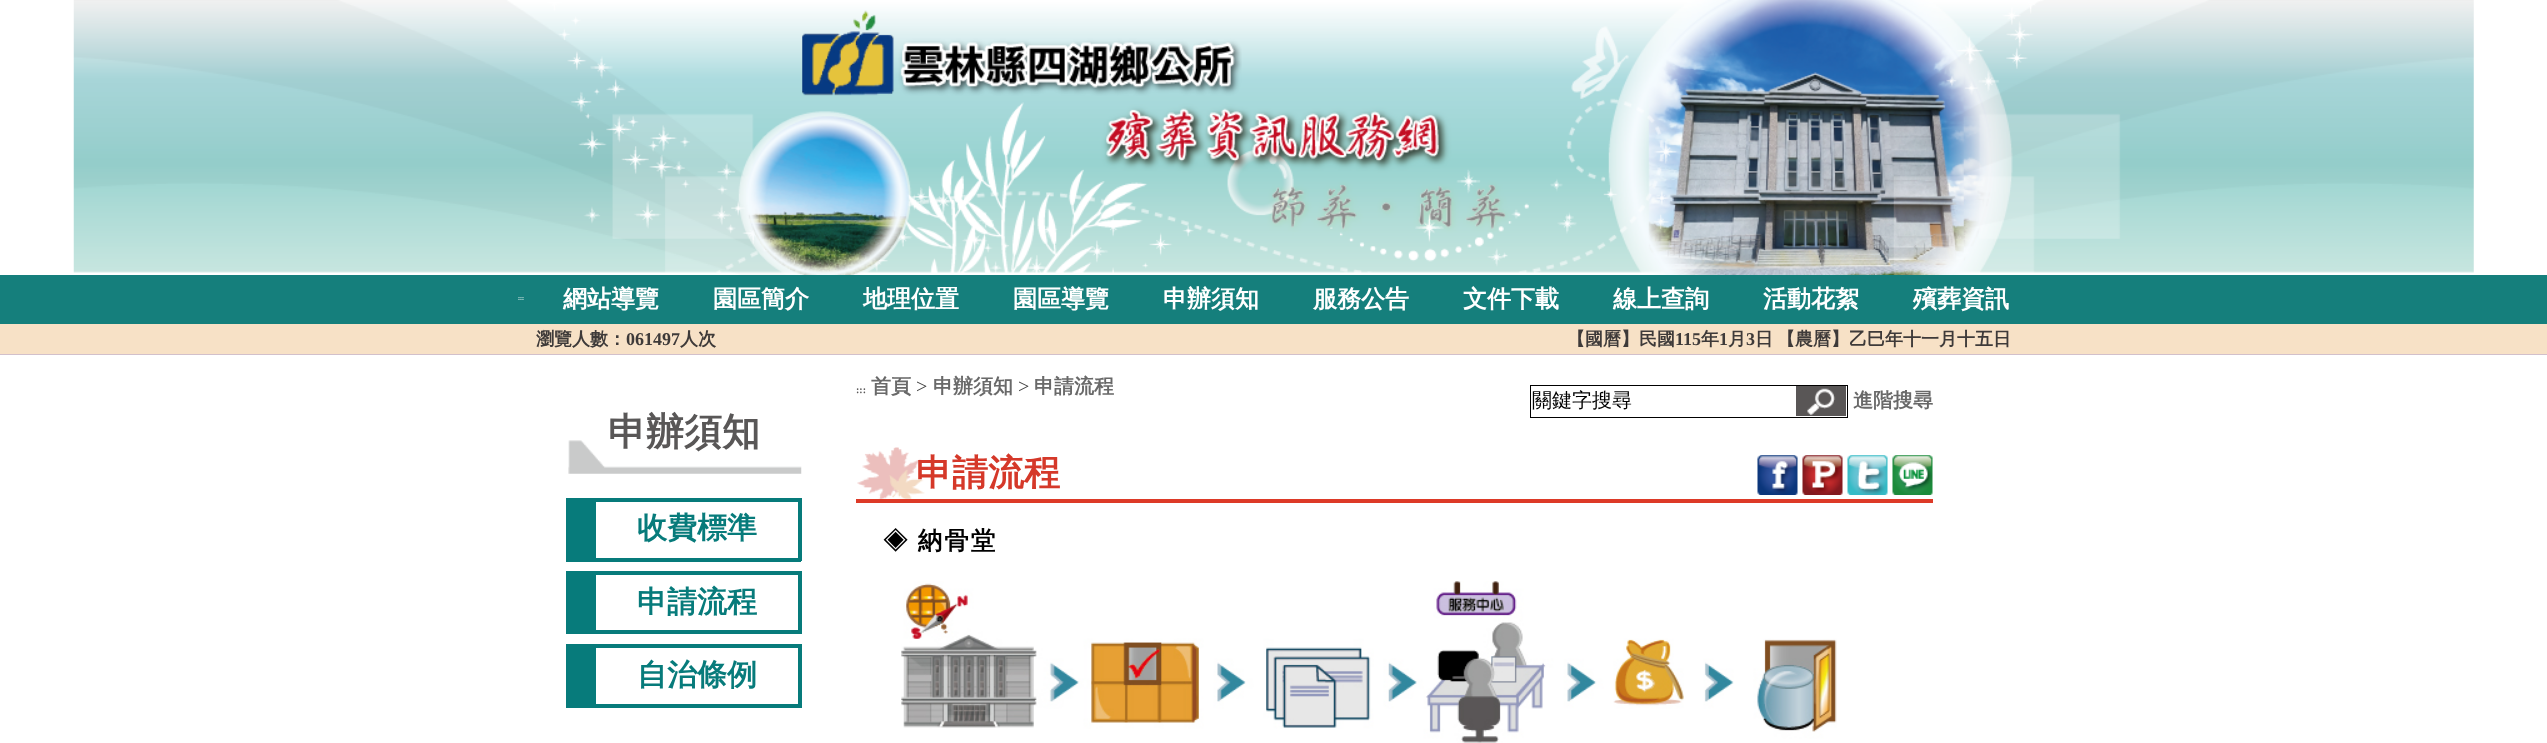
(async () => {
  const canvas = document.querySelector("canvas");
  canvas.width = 2547;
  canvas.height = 743;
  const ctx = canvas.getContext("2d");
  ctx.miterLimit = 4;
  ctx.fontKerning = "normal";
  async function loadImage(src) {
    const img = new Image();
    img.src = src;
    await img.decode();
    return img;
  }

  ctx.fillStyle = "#ffffff";
  ctx.fillRect(0, 0, 2547, 743);
  ctx.drawImage(await loadImage("img/1.png"), 73, 0, 2401, 275);
  ctx.drawImage(await loadImage("img/2.png"), 802, 10, 440, 86);
  for (const [x, y, w, h, color] of [
    [0, 275, 2547, 49, "#157f7c"],
    [0, 324, 2547, 30, "#f7e1c6"],
    [0, 354, 2547, 1, "#d2c0cb"],
  ]) {
    ctx.fillStyle = color;
    ctx.fillRect(x, y, w, h);
  }
  ctx.drawImage(await loadImage("img/3.png"), 568, 440, 234, 34);
  for (const [x, y, w, h, color] of [
    [596, 498, 205, 4, "#077b7b"],
    [798, 498, 4, 63, "#077b7b"],
    [566, 558, 235, 4, "#077b7b"],
    [566, 498, 30, 60, "#077b7b"],
    [596, 571, 205, 4, "#077b7b"],
    [798, 571, 4, 63, "#077b7b"],
    [596, 630, 205, 4, "#077b7b"],
    [566, 571, 30, 63, "#077b7b"],
    [596, 644, 205, 4, "#077b7b"],
    [798, 644, 4, 64, "#077b7b"],
    [596, 704, 205, 4, "#077b7b"],
    [566, 644, 30, 64, "#077b7b"],
  ]) {
    ctx.fillStyle = color;
    ctx.fillRect(x, y, w, h);
  }
  ctx.strokeStyle = "#000000";
  ctx.strokeRect(1530.5, 385.5, 317, 32);
  ctx.fillStyle = "#595656";
  ctx.fillRect(1796, 386, 50, 30);
  ctx.drawImage(await loadImage("img/4.png"), 1807, 388, 29, 28);
  ctx.drawImage(await loadImage("img/5.png"), 857, 447, 68, 52);
  ctx.drawImage(await loadImage("img/6.png"), 1757, 455, 41, 40);
  ctx.drawImage(await loadImage("img/7.png"), 1802, 455, 41, 40);
  ctx.drawImage(await loadImage("img/8.png"), 1847, 455, 41, 40);
  ctx.drawImage(await loadImage("img/9.png"), 1892, 455, 41, 40);
  ctx.fillStyle = "#dd3a28";
  ctx.fillRect(856, 499, 1077, 4);
  ctx.drawImage(await loadImage("img/10.png"), 901, 581, 936, 162);
  ctx.font = "bold 6px Liberation Serif";
  ctx.fillStyle = "#ffffff";
  ctx.fillText(":::", 518, 300);
  ctx.font = "bold 24px WenQuanYi Zen Hei";
  for (const [text, x, y] of [
    ["網站導覽", 563, 307],
    ["園區簡介", 713, 307],
    ["地理位置", 863, 307],
    ["園區導覽", 1013, 307],
    ["申辦須知", 1163, 307],
    ["服務公告", 1313, 307],
    ["文件下載", 1463, 307],
    ["線上查詢", 1613, 307],
    ["活動花絮", 1763, 307],
    ["殯葬資訊", 1913, 307],
  ]) {
    ctx.fillText(text, x, y);
  }
  ctx.font = "bold 18px WenQuanYi Zen Hei";
  ctx.fillStyle = "#3e3a39";
  ctx.fillText("瀏覽人數：", 536, 345);
  ctx.font = "bold 18px Liberation Serif";
  ctx.fillText("061497", 626, 345);
  ctx.font = "bold 18px WenQuanYi Zen Hei";
  ctx.fillText("人次", 680, 345);
  ctx.fillText("【國曆】民國", 1567, 345);
  ctx.font = "bold 18px Liberation Serif";
  ctx.fillText("115", 1675, 345);
  ctx.font = "bold 18px WenQuanYi Zen Hei";
  ctx.fillText("年", 1701, 345);
  ctx.font = "bold 18px Liberation Serif";
  ctx.fillText("1", 1719, 345);
  ctx.font = "bold 18px WenQuanYi Zen Hei";
  ctx.fillText("月", 1728, 345);
  ctx.font = "bold 18px Liberation Serif";
  ctx.fillText("3", 1746, 345);
  ctx.font = "bold 18px WenQuanYi Zen Hei";
  ctx.fillText("日", 1755, 345);
  ctx.fillText("【農曆】乙巳年十一月十五日", 1777, 345);
  ctx.font = "bold 38px WenQuanYi Zen Hei";
  ctx.fillStyle = "#595757";
  ctx.fillText("申辦須知", 608, 445);
  ctx.font = "bold 30px WenQuanYi Zen Hei";
  ctx.fillStyle = "#077b7b";
  for (const [text, x, y] of [
    ["收費標準", 637, 538],
    ["申請流程", 637, 612],
    ["自治條例", 637, 685],
  ]) {
    ctx.fillText(text, x, y);
  }
  ctx.font = "bold 10px Liberation Serif";
  ctx.fillStyle = "#595757";
  ctx.fillText(":::", 856, 393);
  ctx.font = "bold 20px WenQuanYi Zen Hei";
  ctx.fillStyle = "#696969";
  ctx.fillText("首頁", 871, 393);
  ctx.font = "20px Liberation Serif";
  ctx.fillStyle = "#404040";
  ctx.fillText(">", 916, 393);
  ctx.font = "bold 20px WenQuanYi Zen Hei";
  ctx.fillStyle = "#696969";
  ctx.fillText("申辦須知", 933, 393);
  ctx.font = "20px Liberation Serif";
  ctx.fillStyle = "#404040";
  ctx.fillText(">", 1018, 393);
  ctx.font = "bold 20px WenQuanYi Zen Hei";
  ctx.fillStyle = "#696969";
  ctx.fillText("申請流程", 1034, 393);
  ctx.font = "500 20px WenQuanYi Zen Hei";
  ctx.fillStyle = "#000000";
  ctx.fillText("關鍵字搜尋", 1532, 407);
  ctx.font = "bold 20px WenQuanYi Zen Hei";
  ctx.fillStyle = "#696969";
  ctx.fillText("進階搜尋", 1853, 407);
  ctx.font = "bold 36px WenQuanYi Zen Hei";
  ctx.fillStyle = "#d53829";
  ctx.fillText("申請流程", 916, 485);
  ctx.letterSpacing = "2px";
  ctx.wordSpacing = "-1px";
  ctx.font = "bold 24.5px WenQuanYi Zen Hei";
  ctx.fillStyle = "#000000";
  ctx.fillText("◈ 納骨堂", 883, 549);
})();
